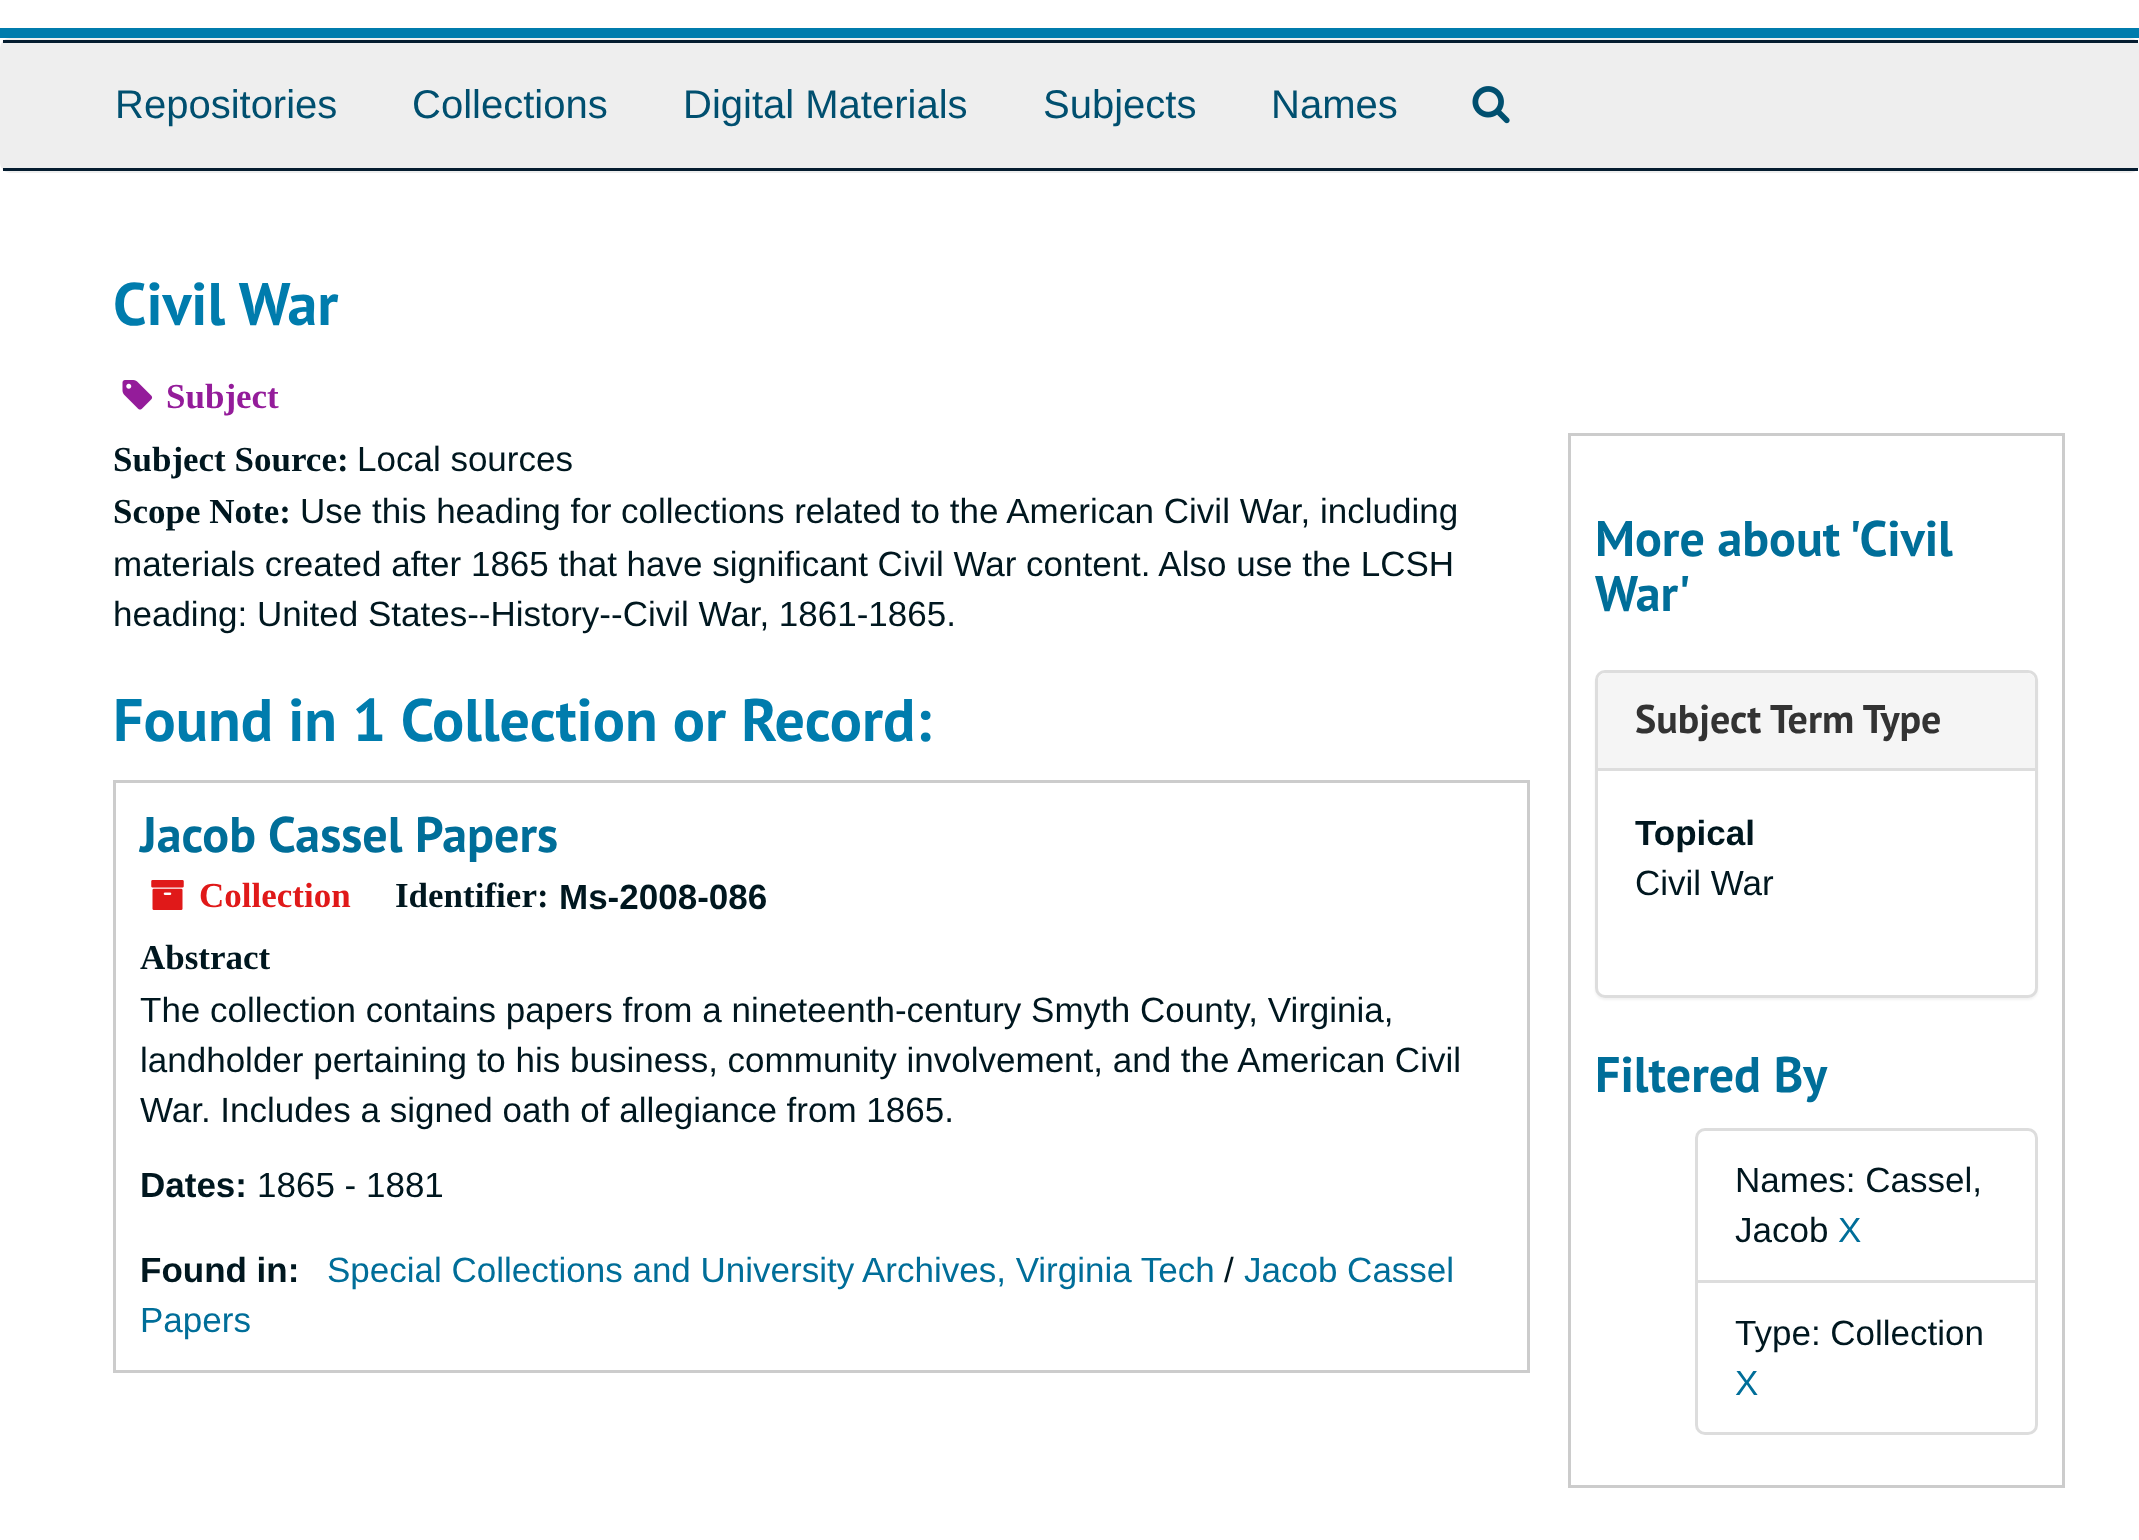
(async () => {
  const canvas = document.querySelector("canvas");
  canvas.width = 2139;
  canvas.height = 1540;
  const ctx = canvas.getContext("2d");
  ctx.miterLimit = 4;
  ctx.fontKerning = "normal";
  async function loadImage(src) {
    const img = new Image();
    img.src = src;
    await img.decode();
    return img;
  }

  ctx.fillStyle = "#ffffff";
  ctx.fillRect(0, 0, 2139, 1540);
  ctx.fillStyle = "#007cad";
  ctx.fillRect(0, 28, 2139, 10);
  ctx.beginPath();
  ctx.roundRect(1.5, 39.5, 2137, 132, 8.5);
  ctx.strokeStyle = "#eeeeee";
  ctx.lineWidth = 3;
  ctx.stroke();
  for (const [x, y, w, h, color] of [
    [3, 43, 2134, 125, "#eeeeee"],
    [3, 40, 2135, 3, "#041c2f"],
    [3, 168, 2135, 3, "#041c2f"],
  ]) {
    ctx.fillStyle = color;
    ctx.fillRect(x, y, w, h);
  }
  ctx.drawImage(await loadImage("img/1.png"), 1472, 86, 38, 38);
  ctx.drawImage(await loadImage("img/2.png"), 122, 380, 31, 30);
  ctx.strokeStyle = "#cccccc";
  ctx.strokeRect(114.5, 781.5, 1414, 590);
  ctx.drawImage(await loadImage("img/3.png"), 151, 880, 33, 30);
  ctx.strokeRect(1569.5, 434.5, 494, 1052);
  ctx.fillStyle = "rgba(0, 0, 0, 0.05)";
  ctx.filter = "blur(1px)";
  ctx.beginPath();
  ctx.roundRect(1595, 673, 443, 327, 10);
  ctx.fill();
  ctx.filter = "none";
  ctx.fillStyle = "#ffffff";
  ctx.beginPath();
  ctx.roundRect(1596.5, 671.5, 440, 325, 8.5);
  ctx.fill();
  ctx.strokeStyle = "#dddddd";
  ctx.stroke();
  ctx.fillStyle = "#f5f5f5";
  ctx.beginPath();
  ctx.roundRect(1598, 673, 437, 95, [8, 8, 0, 0]);
  ctx.fill();
  ctx.fillStyle = "#dddddd";
  ctx.fillRect(1598, 768, 437, 3);
  ctx.beginPath();
  ctx.roundRect(1696.5, 1129.5, 340, 152, [8.5, 8.5, 0, 0]);
  ctx.stroke();
  ctx.fillStyle = "#ffffff";
  ctx.beginPath();
  ctx.roundRect(1696.5, 1281.5, 340, 152, [0, 0, 8.5, 8.5]);
  ctx.fill();
  ctx.stroke();
  ctx.font = "40px Liberation Sans";
  ctx.fillStyle = "#004f6f";
  for (const [text, x, y] of [
    ["Repositories", 115, 118],
    ["Collections", 412, 118],
    ["Digital Materials", 683, 118],
    ["Subjects", 1043, 118],
    ["Names", 1271, 118],
  ]) {
    ctx.fillText(text, x, y);
  }
  ctx.font = "bold 60px PT Sans";
  ctx.fillStyle = "#007cad";
  ctx.fillText("Civil War", 113, 325);
  ctx.font = "bold 35px Liberation Serif";
  ctx.fillStyle = "#941c9a";
  ctx.fillText("Subject", 166, 408);
  ctx.fillStyle = "#00171f";
  ctx.fillText("Subject Source:", 113, 471);
  ctx.font = "35px Liberation Sans";
  ctx.fillText("Local sources", 357, 471);
  ctx.font = "bold 35px Liberation Serif";
  ctx.fillText("Scope Note:", 113, 523);
  ctx.font = "35px Liberation Sans";
  for (const [text, x, y] of [
    ["Use this heading for collections related to the American Civil War, including", 300, 523],
    ["materials created after 1865 that have significant Civil War content. Also use the LCSH", 113, 576],
    ["heading: United States--History--Civil War, 1861-1865.", 113, 626],
  ]) {
    ctx.fillText(text, x, y);
  }
  ctx.font = "bold 60px PT Sans";
  ctx.fillStyle = "#007cad";
  ctx.fillText("Found in 1 Collection or Record:", 113, 741);
  ctx.font = "bold 50px PT Sans";
  ctx.fillStyle = "#006e99";
  ctx.fillText("Jacob Cassel Papers", 140, 852);
  ctx.font = "bold 35px Liberation Serif";
  ctx.fillStyle = "#e01919";
  ctx.fillText("Collection", 199, 907);
  ctx.fillStyle = "#00171f";
  ctx.fillText("Identifier:", 395, 907);
  ctx.font = "bold 35px Liberation Sans";
  ctx.fillText("Ms-2008-086", 559, 909);
  ctx.font = "bold 35px Liberation Serif";
  ctx.fillText("Abstract", 140, 969);
  ctx.font = "35px Liberation Sans";
  for (const [text, x, y] of [
    ["The collection contains papers from a nineteenth-century Smyth County, Virginia,", 140, 1022],
    ["landholder pertaining to his business, community involvement, and the American Civil", 140, 1072],
    ["War. Includes a signed oath of allegiance from 1865.", 140, 1122],
  ]) {
    ctx.fillText(text, x, y);
  }
  ctx.font = "bold 35px Liberation Sans";
  ctx.fillText("Dates:", 140, 1197);
  ctx.font = "35px Liberation Sans";
  ctx.fillText("1865 - 1881", 257, 1197);
  ctx.font = "bold 35px Liberation Sans";
  ctx.fillText("Found in:", 140, 1282);
  ctx.font = "35px Liberation Sans";
  ctx.fillStyle = "#006e99";
  ctx.fillText("Special Collections and University Archives, Virginia Tech", 327, 1282);
  ctx.fillStyle = "#00171f";
  ctx.fillText("/", 1224, 1282);
  ctx.fillStyle = "#006e99";
  ctx.fillText("Jacob Cassel", 1244, 1282);
  ctx.fillText("Papers", 140, 1332);
  ctx.font = "bold 50px PT Sans";
  ctx.fillText("More about 'Civil", 1595, 556);
  ctx.fillText("War'", 1595, 611);
  ctx.font = "bold 40px PT Sans";
  ctx.fillStyle = "#333333";
  ctx.fillText("Subject Term Type", 1635, 733);
  ctx.font = "bold 35px Liberation Sans";
  ctx.fillStyle = "#00171f";
  ctx.fillText("Topical", 1635, 845);
  ctx.font = "35px Liberation Sans";
  ctx.fillText("Civil War", 1635, 895);
  ctx.font = "bold 50px PT Sans";
  ctx.fillStyle = "#006e99";
  ctx.fillText("Filtered By", 1595, 1092);
  ctx.font = "35px Liberation Sans";
  ctx.fillStyle = "#00171f";
  ctx.fillText("Names: Cassel,", 1735, 1192);
  ctx.fillText("Jacob", 1735, 1242);
  ctx.fillStyle = "#006e99";
  ctx.fillText("X", 1838, 1242);
  ctx.fillStyle = "#00171f";
  ctx.fillText("Type: Collection", 1735, 1345);
  ctx.fillStyle = "#006e99";
  ctx.fillText("X", 1735, 1395);
})();
